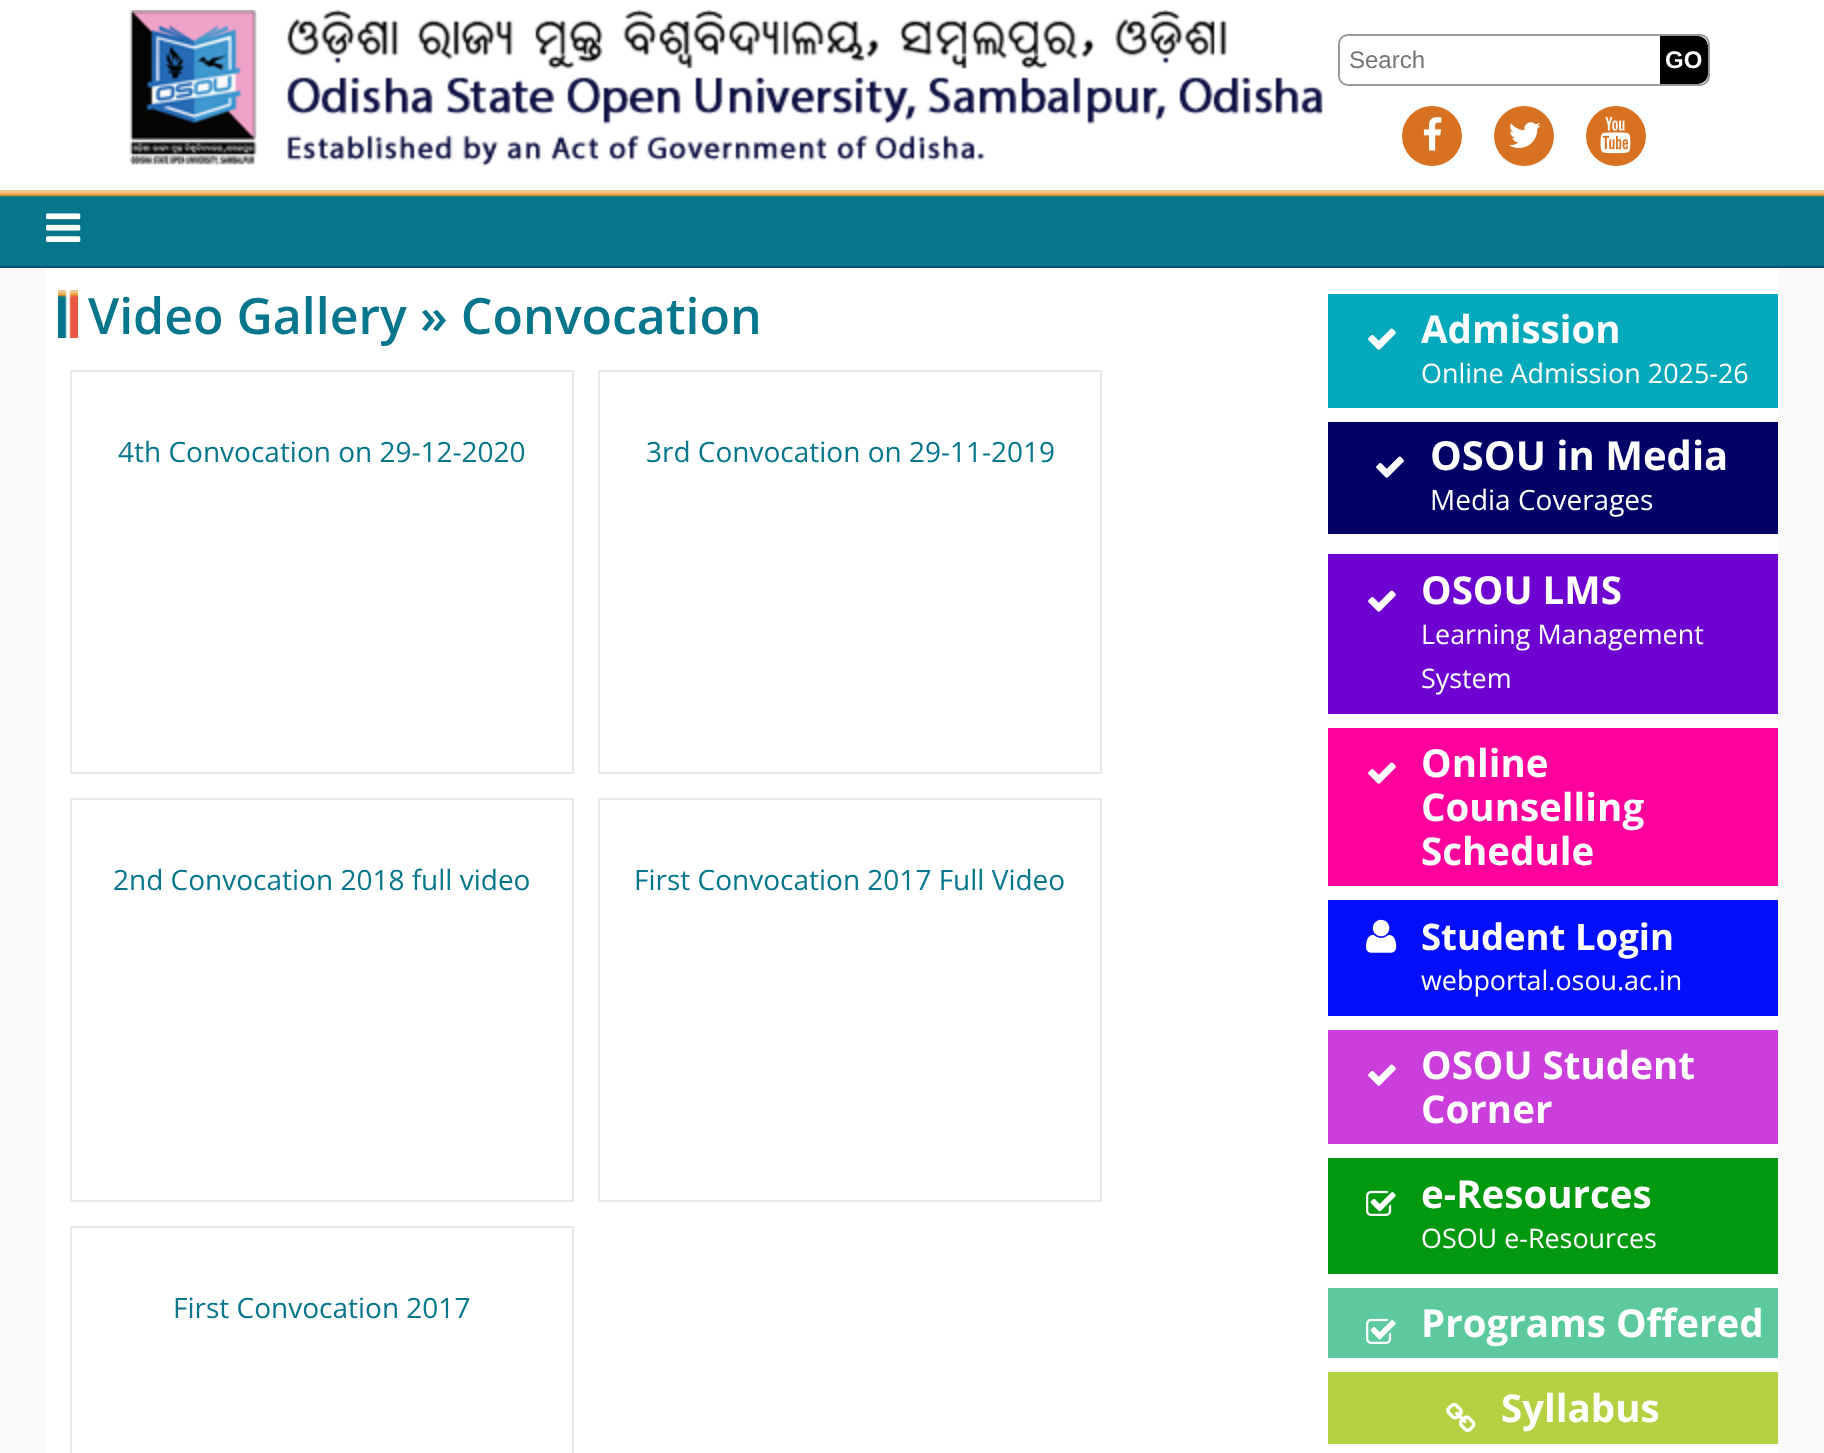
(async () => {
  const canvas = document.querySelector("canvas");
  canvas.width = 1824;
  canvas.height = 1453;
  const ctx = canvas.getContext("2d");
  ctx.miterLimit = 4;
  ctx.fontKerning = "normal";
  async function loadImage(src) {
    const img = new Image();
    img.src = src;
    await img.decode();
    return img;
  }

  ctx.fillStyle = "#f9f9f9";
  ctx.fillRect(0, 0, 1824, 1453);
  ctx.fillStyle = "#ffffff";
  ctx.fillRect(0, 0, 1824, 190);
  ctx.drawImage(await loadImage("img/1.png"), 129, 10, 1194, 156);
  ctx.beginPath();
  ctx.roundRect(1339, 35, 370, 50, 9);
  ctx.strokeStyle = "#999999";
  ctx.lineWidth = 2;
  ctx.stroke();
  ctx.beginPath();
  ctx.roundRect(1340, 36, 320, 48, 10);
  ctx.fill();
  ctx.fillStyle = "#000000";
  ctx.beginPath();
  ctx.roundRect(1660, 36, 48, 48, [0, 10, 10, 0]);
  ctx.fill();
  ctx.fillStyle = "#d77222";
  ctx.beginPath();
  ctx.arc(1432, 136, 30, 0, Math.PI * 2);
  ctx.fill();
  ctx.drawImage(await loadImage("img/2.png"), 1423, 117, 19, 34);
  ctx.beginPath();
  ctx.arc(1524, 136, 30, 0, Math.PI * 2);
  ctx.fill();
  ctx.drawImage(await loadImage("img/3.png"), 1509, 122, 32, 26);
  ctx.beginPath();
  ctx.arc(1616, 136, 30, 0, Math.PI * 2);
  ctx.fill();
  ctx.drawImage(await loadImage("img/4.png"), 1600, 117, 31, 37);
  ctx.drawImage(await loadImage("img/5.png"), 0, 190, 1824, 78);
  ctx.drawImage(await loadImage("img/6.png"), 46, 213, 35, 29);
  ctx.fillStyle = "#ffffff";
  ctx.fillRect(46, 268, 1732, 1185);
  ctx.drawImage(await loadImage("img/7.png"), 58, 290, 20, 48);
  ctx.strokeStyle = "#e9e9e9";
  ctx.strokeRect(71, 371, 502, 402);
  ctx.strokeRect(599, 371, 502, 402);
  ctx.strokeRect(71, 799, 502, 402);
  ctx.strokeRect(599, 799, 502, 402);
  ctx.strokeRect(71, 1227, 502, 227);
  ctx.fillStyle = "#04a9bc";
  ctx.fillRect(1328, 294, 450, 114);
  ctx.drawImage(await loadImage("img/8.png"), 1368, 328, 28, 22);
  ctx.fillStyle = "#000066";
  ctx.fillRect(1328, 422, 450, 112);
  ctx.drawImage(await loadImage("img/9.png"), 1376, 456, 28, 22);
  ctx.fillStyle = "#6d02d1";
  ctx.fillRect(1328, 554, 450, 160);
  ctx.drawImage(await loadImage("img/10.png"), 1368, 590, 28, 22);
  ctx.fillStyle = "#ff009c";
  ctx.fillRect(1328, 728, 450, 158);
  ctx.drawImage(await loadImage("img/11.png"), 1368, 762, 28, 22);
  ctx.fillStyle = "#030ffb";
  ctx.fillRect(1328, 900, 450, 116);
  ctx.drawImage(await loadImage("img/12.png"), 1366, 919, 31, 34);
  ctx.fillStyle = "#ca3edb";
  ctx.fillRect(1328, 1030, 450, 114);
  ctx.drawImage(await loadImage("img/13.png"), 1368, 1064, 28, 22);
  ctx.fillStyle = "#029810";
  ctx.fillRect(1328, 1158, 450, 116);
  ctx.drawImage(await loadImage("img/14.png"), 1366, 1190, 30, 26);
  ctx.fillStyle = "#5cca9d";
  ctx.fillRect(1328, 1288, 450, 70);
  ctx.drawImage(await loadImage("img/15.png"), 1366, 1318, 30, 26);
  ctx.fillStyle = "#b4d142";
  ctx.fillRect(1328, 1372, 450, 72);
  ctx.drawImage(await loadImage("img/16.png"), 1446, 1402, 30, 30);
  ctx.font = "24px Liberation Sans";
  ctx.fillStyle = "#757575";
  ctx.fillText("Search", 1349, 68);
  ctx.font = "bold 24px Liberation Sans";
  ctx.fillStyle = "#ffffff";
  ctx.fillText("GO", 1665, 68);
  ctx.font = "600 50px Open Sans";
  ctx.fillStyle = "#05768c";
  ctx.fillText("Video Gallery", 88, 334);
  ctx.fillText("» Convocation", 420, 334);
  ctx.font = "28px Open Sans";
  for (const [text, x, y] of [
    ["4th Convocation on 29-12-2020", 118, 462],
    ["3rd Convocation on 29-11-2019", 646, 462],
    ["2nd Convocation 2018 full video", 113, 890],
    ["First Convocation 2017 Full Video", 634, 890],
    ["First Convocation 2017", 173, 1318],
  ]) {
    ctx.fillText(text, x, y);
  }
  ctx.font = "bold 38.5px Open Sans";
  ctx.fillStyle = "#ffffff";
  ctx.fillText("Admission", 1421, 343);
  ctx.font = "26.9px Open Sans";
  ctx.fillText("Online Admission 2025-26", 1421, 383);
  ctx.font = "bold 40px Open Sans";
  ctx.fillText("OSOU in Media", 1430, 470);
  ctx.font = "28px Open Sans";
  ctx.fillText("Media Coverages", 1430, 510);
  ctx.font = "bold 38.5px Open Sans";
  ctx.fillText("OSOU LMS", 1421, 604);
  ctx.font = "26.9px Open Sans";
  ctx.fillText("Learning Management", 1421, 644);
  ctx.fillText("System", 1421, 688);
  ctx.font = "bold 38.5px Open Sans";
  for (const [text, x, y] of [
    ["Online", 1421, 777],
    ["Counselling", 1421, 821],
    ["Schedule", 1421, 865],
  ]) {
    ctx.fillText(text, x, y);
  }
  ctx.font = "bold 36.5px Open Sans";
  ctx.fillText("Student Login", 1421, 950);
  ctx.font = "26.9px Open Sans";
  ctx.fillText("webportal.osou.ac.in", 1421, 990);
  ctx.font = "bold 38.5px Open Sans";
  for (const [text, x, y] of [
    ["OSOU Student", 1421, 1079],
    ["Corner", 1421, 1123],
    ["e-Resources", 1421, 1208],
  ]) {
    ctx.fillText(text, x, y);
  }
  ctx.font = "26.9px Open Sans";
  ctx.fillText("OSOU e-Resources", 1421, 1248);
  ctx.font = "bold 38.5px Open Sans";
  ctx.fillText("Programs Offered", 1421, 1337);
  ctx.fillText("Syllabus", 1501, 1422);
})();
